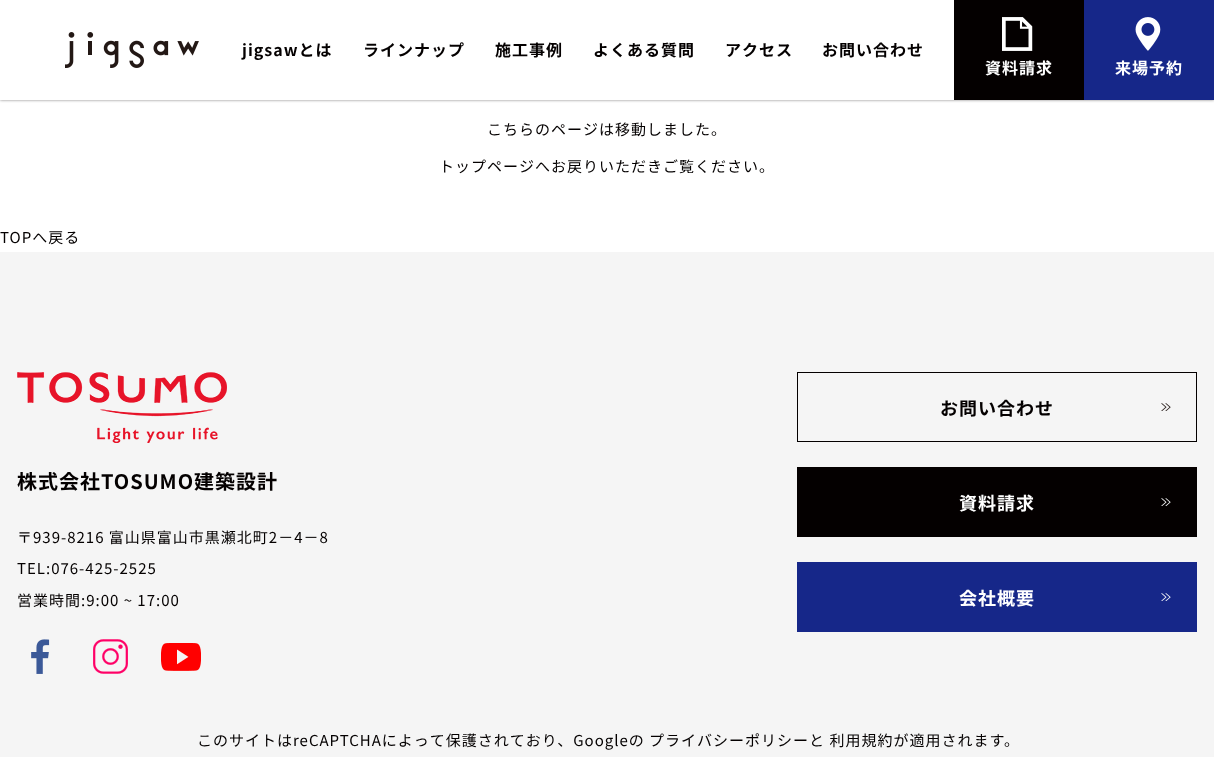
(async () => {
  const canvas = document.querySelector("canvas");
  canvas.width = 1214;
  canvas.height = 757;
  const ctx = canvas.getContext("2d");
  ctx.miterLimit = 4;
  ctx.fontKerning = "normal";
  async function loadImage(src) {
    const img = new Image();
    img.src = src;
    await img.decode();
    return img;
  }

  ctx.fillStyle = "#ffffff";
  ctx.fillRect(0, 0, 1214, 757);
  ctx.fillStyle = "rgba(4, 0, 0, 0.5)";
  ctx.filter = "blur(1.5px)";
  ctx.beginPath();
  ctx.rect(0, 0, 1214, 100);
  ctx.fill();
  ctx.filter = "none";
  ctx.fillStyle = "#ffffff";
  ctx.fillRect(0, 0, 954, 100);
  ctx.drawImage(await loadImage("img/1.png"), 65, 32, 134, 36);
  ctx.fillStyle = "#040000";
  ctx.fillRect(954, 0, 130, 100);
  ctx.drawImage(await loadImage("img/2.png"), 1002, 17, 31, 34);
  ctx.fillStyle = "#162789";
  ctx.fillRect(1084, 0, 130, 100);
  ctx.drawImage(await loadImage("img/3.png"), 1135, 17, 26, 34);
  ctx.fillStyle = "#f5f5f5";
  ctx.fillRect(0, 252, 1214, 505);
  ctx.drawImage(await loadImage("img/4.png"), 17, 372, 210, 71);
  ctx.drawImage(await loadImage("img/5.png"), 31, 639, 19, 35);
  ctx.drawImage(await loadImage("img/6.png"), 93, 639, 35, 35);
  ctx.drawImage(await loadImage("img/7.png"), 161, 643, 40, 28);
  ctx.strokeStyle = "#040000";
  ctx.strokeRect(797.5, 372.5, 399, 69);
  ctx.drawImage(await loadImage("img/8.png"), 1161, 403, 10, 8);
  ctx.fillStyle = "#040000";
  ctx.fillRect(797, 467, 400, 70);
  ctx.drawImage(await loadImage("img/9.png"), 1161, 498, 10, 8);
  ctx.fillStyle = "#162789";
  ctx.fillRect(797, 562, 400, 70);
  ctx.drawImage(await loadImage("img/10.png"), 1161, 593, 10, 8);
  ctx.letterSpacing = "1px";
  ctx.font = "bold 16px Noto Sans JP";
  ctx.fillStyle = "#040000";
  for (const [text, x, y] of [
    ["jigsawとは", 242, 56],
    ["ラインナップ", 363, 56],
    ["施工事例", 495, 56],
    ["よくある質問", 593, 56],
    ["アクセス", 725, 56],
    ["お問い合わせ", 822, 56],
  ]) {
    ctx.fillText(text, x, y);
  }
  ctx.fillStyle = "#ffffff";
  ctx.fillText("資料請求", 985, 74);
  ctx.fillText("来場予約", 1115, 74);
  ctx.font = "15px Noto Sans JP";
  ctx.fillStyle = "#040000";
  for (const [text, x, y] of [
    ["こちらのページは移動しました。", 487, 135],
    ["トップページへお戻りいただきご覧ください。", 439, 172],
    ["TOPへ戻る", 0, 243],
  ]) {
    ctx.fillText(text, x, y);
  }
  ctx.font = "bold 20px Noto Sans JP";
  ctx.fillText("株式会社TOSUMO建築設計", 17, 489);
  ctx.font = "15px Noto Sans JP";
  for (const [text, x, y] of [
    ["〒939-8216 富山県富山市黒瀬北町2－4－8", 17, 543],
    ["TEL:076-425-2525", 17, 574],
    ["営業時間:9:00 ~ 17:00", 17, 606],
  ]) {
    ctx.fillText(text, x, y);
  }
  ctx.font = "bold 18px Noto Sans JP";
  ctx.fillText("お問い合わせ", 940, 415);
  ctx.fillStyle = "#ffffff";
  ctx.fillText("資料請求", 959, 510);
  ctx.fillText("会社概要", 959, 605);
  ctx.font = "15px Noto Sans JP";
  ctx.fillStyle = "#040000";
  ctx.fillText("このサイトはreCAPTCHAによって保護されており、Googleの プライバシーポリシーと 利用規約が適用されます。", 197, 746);
})();
